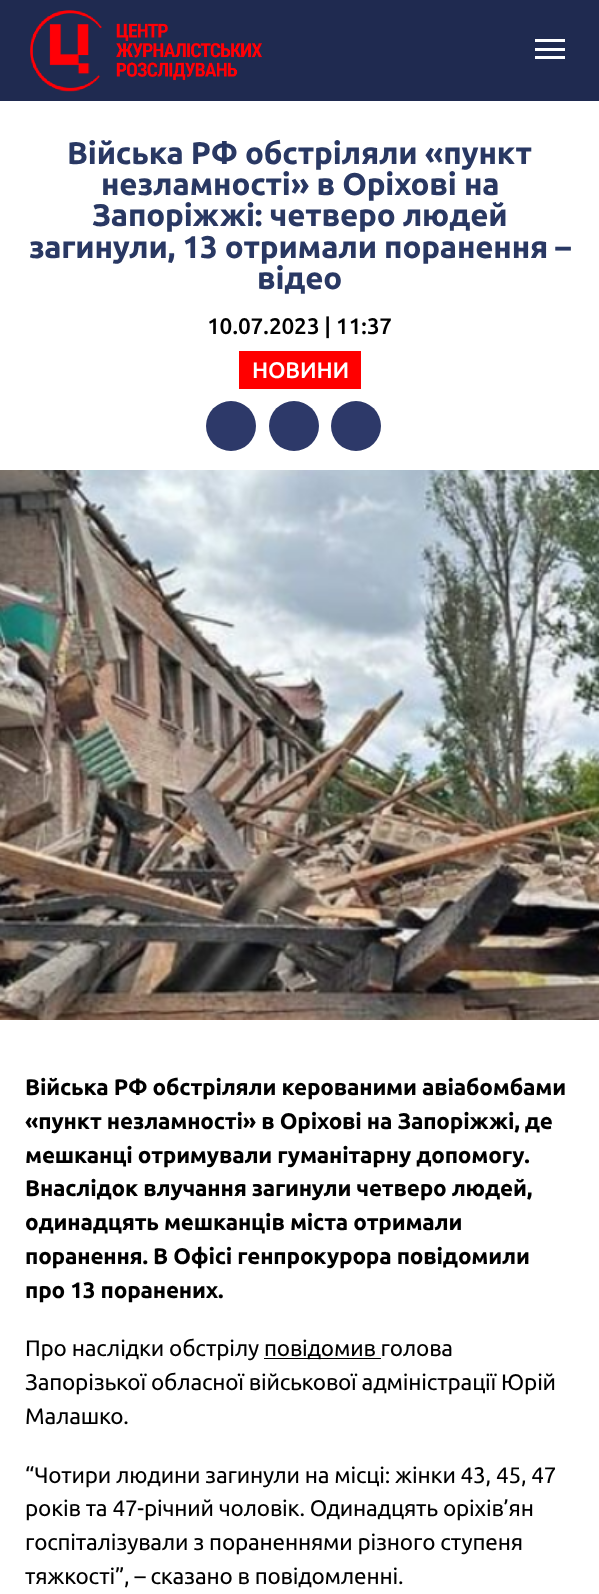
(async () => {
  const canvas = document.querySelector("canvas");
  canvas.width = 599;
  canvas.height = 1594;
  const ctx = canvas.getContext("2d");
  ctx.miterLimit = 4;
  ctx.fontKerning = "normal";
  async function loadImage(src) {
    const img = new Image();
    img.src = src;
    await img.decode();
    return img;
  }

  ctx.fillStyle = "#ffffff";
  ctx.fillRect(0, 0, 599, 1594);
  ctx.fillStyle = "#1f2a50";
  ctx.fillRect(0, 0, 599, 101);
  ctx.drawImage(await loadImage("img/1.png"), 30, 10, 232, 82);
  for (const [x, y, w, h, color] of [
    [535, 39, 30, 3, "#ffffff"],
    [535, 48, 30, 3, "#ffffff"],
    [535, 56, 30, 3, "#ffffff"],
    [239, 351, 122, 38, "#ff0000"],
  ]) {
    ctx.fillStyle = color;
    ctx.fillRect(x, y, w, h);
  }
  ctx.fillStyle = "#2d3969";
  ctx.beginPath();
  ctx.arc(231, 426, 25, 0, Math.PI * 2);
  ctx.fill();
  ctx.beginPath();
  ctx.arc(294, 426, 25, 0, Math.PI * 2);
  ctx.fill();
  ctx.beginPath();
  ctx.arc(356, 426, 25, 0, Math.PI * 2);
  ctx.fill();
  ctx.drawImage(await loadImage("img/2.png"), 0, 470, 599, 550);
  ctx.fillStyle = "#000000";
  ctx.fillRect(264, 1358, 117, 1);
  ctx.letterSpacing = "-0.2px";
  ctx.font = "bold 31.25px Ubuntu";
  ctx.fillStyle = "#293863";
  for (const [text, x, y] of [
    ["Війська РФ обстріляли «пункт", 67, 164],
    ["незламності» в Оріхові на", 101, 195],
    ["Запоріжжі: четверо людей", 92, 226],
    ["загинули, 13 отримали поранення –", 29, 258],
    ["відео", 257, 289],
  ]) {
    ctx.fillText(text, x, y);
  }
  ctx.font = "500 22.5px Ubuntu";
  ctx.fillStyle = "#000000";
  ctx.fillText("10.07.2023 | 11:37", 207, 334);
  ctx.fillStyle = "#ffffff";
  ctx.fillText("НОВИНИ", 252, 378);
  ctx.font = "bold 22.5px Ubuntu";
  ctx.fillStyle = "#000000";
  for (const [text, x, y] of [
    ["Війська РФ обстріляли керованими авіабомбами", 25, 1095],
    ["«пункт незламності» в Оріхові на Запоріжжі, де", 25, 1129],
    ["мешканці отримували гуманітарну допомогу.", 25, 1163],
    ["Внаслідок влучання загинули четверо людей,", 25, 1196],
    ["одинадцять мешканців міста отримали", 25, 1230],
    ["поранення. В Офісі генпрокурора повідомили", 25, 1264],
    ["про 13 поранених.", 25, 1298],
  ]) {
    ctx.fillText(text, x, y);
  }
  ctx.font = "22.5px Ubuntu";
  for (const [text, x, y] of [
    ["Про наслідки обстрілу", 25, 1356],
    ["повідомив голова", 264, 1356],
    ["Запорізької обласної військової адміністрації Юрій", 25, 1390],
    ["Малашко.", 25, 1424],
    ["“Чотири людини загинули на місці: жінки 43, 45, 47", 25, 1483],
    ["років та 47-річний чоловік. Одинадцять оріхів’ян", 25, 1516],
    ["госпіталізували з пораненнями різного ступеня", 25, 1550],
    ["тяжкості”, – сказано в повідомленні.", 25, 1584],
  ]) {
    ctx.fillText(text, x, y);
  }
})();
